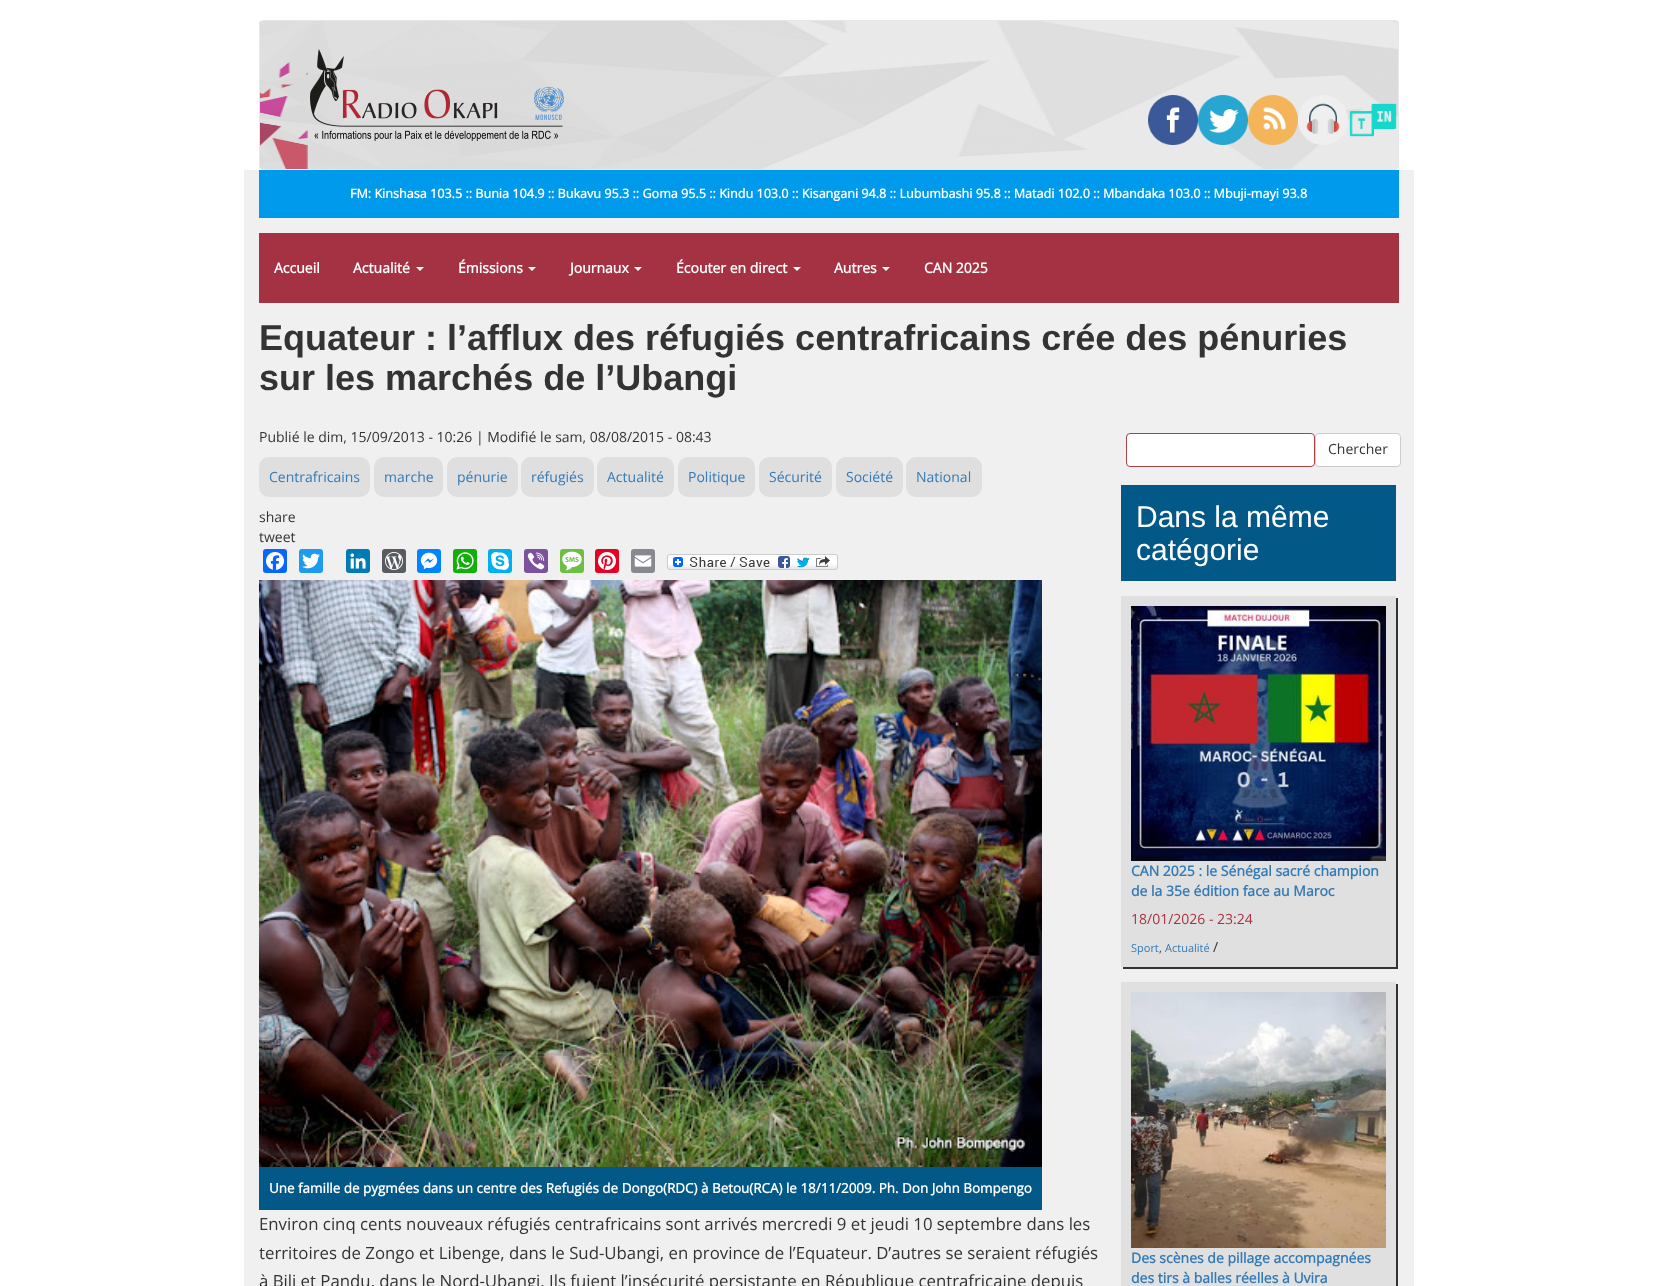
(async () => {
  const canvas = document.querySelector("canvas");
  canvas.width = 1658;
  canvas.height = 1286;
  const ctx = canvas.getContext("2d");
  ctx.miterLimit = 4;
  ctx.fontKerning = "normal";
  async function loadImage(src) {
    const img = new Image();
    img.src = src;
    await img.decode();
    return img;
  }
  let path;

  ctx.fillStyle = "#ffffff";
  ctx.fillRect(0, 0, 1658, 1286);
  ctx.drawImage(await loadImage("img/1.png"), 259, 21, 1140, 148);
  ctx.beginPath();
  ctx.roundRect(259.5, 20.5, 1139, 149, 3.5);
  ctx.strokeStyle = "#e7e7e7";
  ctx.stroke();
  ctx.drawImage(await loadImage("img/2.png"), 310, 49, 254, 92);
  ctx.drawImage(await loadImage("img/3.png"), 1148, 95, 50, 50);
  ctx.drawImage(await loadImage("img/4.png"), 1198, 95, 50, 50);
  ctx.drawImage(await loadImage("img/5.png"), 1248, 95, 50, 50);
  ctx.drawImage(await loadImage("img/6.png"), 1298, 95, 50, 50);
  ctx.drawImage(await loadImage("img/7.png"), 1349, 103, 48, 34);
  for (const [x, y, w, h, color] of [
    [244, 170, 1170, 1116, "#f0f0f0"],
    [259, 170, 1140, 48, "#009aec"],
    [259, 233, 1140, 70, "#a53242"],
  ]) {
    ctx.fillStyle = color;
    ctx.fillRect(x, y, w, h);
  }
  ctx.fillStyle = "#ffffff";
  path = new Path2D("M416 267H424L420 271Z");
  ctx.fill(path);
  path = new Path2D("M528 267H536L532 271Z");
  ctx.fill(path);
  path = new Path2D("M634 267H642L638 271Z");
  ctx.fill(path);
  path = new Path2D("M793 267H801L797 271Z");
  ctx.fill(path);
  path = new Path2D("M882 267H890L886 271Z");
  ctx.fill(path);
  ctx.fillStyle = "#dfdfdf";
  ctx.beginPath();
  ctx.roundRect(259, 457, 111, 40, 10);
  ctx.fill();
  ctx.beginPath();
  ctx.roundRect(374, 457, 69, 40, 10);
  ctx.fill();
  ctx.beginPath();
  ctx.roundRect(447, 457, 71, 40, 10);
  ctx.fill();
  ctx.beginPath();
  ctx.roundRect(521, 457, 73, 40, 10);
  ctx.fill();
  ctx.beginPath();
  ctx.roundRect(597, 457, 77, 40, 10);
  ctx.fill();
  ctx.beginPath();
  ctx.roundRect(678, 457, 77, 40, 10);
  ctx.fill();
  ctx.beginPath();
  ctx.roundRect(759, 457, 73, 40, 10);
  ctx.fill();
  ctx.beginPath();
  ctx.roundRect(836, 457, 67, 40, 10);
  ctx.fill();
  ctx.beginPath();
  ctx.roundRect(906, 457, 76, 40, 10);
  ctx.fill();
  ctx.fillStyle = "#0866ff";
  ctx.beginPath();
  ctx.roundRect(263, 549, 24, 24, 3);
  ctx.fill();
  ctx.drawImage(await loadImage("img/8.png"), 266, 552, 18, 18);
  ctx.fillStyle = "#1d9bf0";
  ctx.beginPath();
  ctx.roundRect(299, 549, 24, 24, 3);
  ctx.fill();
  ctx.drawImage(await loadImage("img/9.png"), 302, 553, 18, 16);
  ctx.fillStyle = "#007bb5";
  ctx.beginPath();
  ctx.roundRect(346, 549, 24, 24, 3);
  ctx.fill();
  ctx.drawImage(await loadImage("img/10.png"), 350, 553, 16, 16);
  ctx.fillStyle = "#585c60";
  ctx.beginPath();
  ctx.roundRect(382, 549, 24, 24, 3);
  ctx.fill();
  ctx.drawImage(await loadImage("img/11.png"), 385, 552, 18, 18);
  ctx.fillStyle = "#0084ff";
  ctx.beginPath();
  ctx.roundRect(417, 549, 24, 24, 3);
  ctx.fill();
  ctx.drawImage(await loadImage("img/12.png"), 420, 552, 18, 18);
  ctx.fillStyle = "#12af0a";
  ctx.beginPath();
  ctx.roundRect(453, 549, 24, 24, 3);
  ctx.fill();
  ctx.drawImage(await loadImage("img/13.png"), 456, 552, 18, 18);
  ctx.fillStyle = "#00aff0";
  ctx.beginPath();
  ctx.roundRect(488, 549, 24, 24, 3);
  ctx.fill();
  ctx.drawImage(await loadImage("img/14.png"), 491, 552, 18, 18);
  ctx.fillStyle = "#7c529e";
  ctx.beginPath();
  ctx.roundRect(524, 549, 24, 24, 3);
  ctx.fill();
  ctx.drawImage(await loadImage("img/15.png"), 527, 552, 18, 18);
  ctx.fillStyle = "#6cbe45";
  ctx.beginPath();
  ctx.roundRect(560, 549, 24, 24, 3);
  ctx.fill();
  ctx.drawImage(await loadImage("img/16.png"), 562, 551, 20, 20);
  ctx.fillStyle = "#e60023";
  ctx.beginPath();
  ctx.roundRect(595, 549, 24, 24, 3);
  ctx.fill();
  ctx.drawImage(await loadImage("img/17.png"), 598, 552, 18, 18);
  ctx.fillStyle = "#888990";
  ctx.beginPath();
  ctx.roundRect(631, 549, 24, 24, 3);
  ctx.fill();
  ctx.drawImage(await loadImage("img/18.png"), 634, 555, 18, 12);
  ctx.drawImage(await loadImage("img/19.png"), 667, 554, 171, 16);
  ctx.drawImage(await loadImage("img/20.png"), 259, 580, 783, 587);
  ctx.fillStyle = "#025988";
  ctx.fillRect(259, 1167, 783, 43);
  ctx.fillStyle = "#ffffff";
  ctx.beginPath();
  ctx.roundRect(1126.5, 433.5, 188, 33, 3.5);
  ctx.fill();
  ctx.strokeStyle = "#a94442";
  ctx.stroke();
  ctx.beginPath();
  ctx.roundRect(1315.5, 433.5, 85, 33, 3.5);
  ctx.fill();
  ctx.strokeStyle = "#cccccc";
  ctx.stroke();
  ctx.fillStyle = "#025988";
  ctx.fillRect(1121, 485, 275, 96);
  ctx.fillStyle = "#333333";
  ctx.filter = "blur(0.5px)";
  ctx.beginPath();
  ctx.rect(1123, 598, 275, 371);
  ctx.fill();
  ctx.filter = "none";
  ctx.fillStyle = "#e0e0e0";
  ctx.fillRect(1121, 596, 275, 371);
  ctx.drawImage(await loadImage("img/21.png"), 1131, 606, 255, 255);
  ctx.fillStyle = "#333333";
  ctx.filter = "blur(0.5px)";
  ctx.beginPath();
  ctx.rect(1123, 984, 275, 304);
  ctx.fill();
  ctx.filter = "none";
  ctx.fillStyle = "#e0e0e0";
  ctx.fillRect(1121, 982, 275, 304);
  ctx.drawImage(await loadImage("img/22.png"), 1131, 992, 255, 256);
  ctx.font = "bold 12.6px Open Sans";
  ctx.fillStyle = "#ffffff";
  ctx.fillText("FM: Kinshasa 103.5 :: Bunia 104.9 :: Bukavu 95.3 :: Goma 95.5 :: Kindu 103.0 :: Kisangani 94.8 :: Lubumbashi 95.8 :: Matadi 102.0 :: Mbandaka 103.0 :: Mbuji-mayi 93.8", 350, 198);
  ctx.font = "bold 14px Open Sans";
  for (const [text, x, y] of [
    ["Accueil", 274, 273],
    ["Actualité", 353, 273],
    ["Émissions", 458, 273],
    ["Journaux", 570, 273],
    ["Écouter en direct", 676, 273],
    ["Autres", 834, 273],
    ["CAN 2025", 924, 273],
  ]) {
    ctx.fillText(text, x, y);
  }
  ctx.font = "bold 36px Liberation Sans";
  ctx.fillStyle = "#333333";
  ctx.fillText("Equateur : l’afflux des réfugiés centrafricains crée des pénuries", 259, 350);
  ctx.fillText("sur les marchés de l’Ubangi", 259, 390);
  ctx.font = "14px Open Sans";
  ctx.fillText("Publié le dim, 15/09/2013 - 10:26 | Modifié le sam, 08/08/2015 - 08:43", 259, 442);
  ctx.fillStyle = "#337ab7";
  for (const [text, x, y] of [
    ["Centrafricains", 269, 482],
    ["marche", 384, 482],
    ["pénurie", 457, 482],
    ["réfugiés", 531, 482],
    ["Actualité", 607, 482],
    ["Politique", 688, 482],
    ["Sécurité", 769, 482],
    ["Société", 846, 482],
    ["National", 916, 482],
  ]) {
    ctx.fillText(text, x, y);
  }
  ctx.fillStyle = "#333333";
  ctx.fillText("share", 259, 522);
  ctx.fillText("tweet", 259, 542);
  ctx.font = "bold 13.45px Open Sans";
  ctx.fillStyle = "#ffffff";
  ctx.fillText("Une famille de pygmées dans un centre des Refugiés de Dongo(RDC) à Betou(RCA) le 18/11/2009. Ph. Don John Bompengo", 269, 1193);
  ctx.font = "16.8px Open Sans";
  ctx.fillStyle = "#333333";
  for (const [text, x, y] of [
    ["Environ cinq cents nouveaux réfugiés centrafricains sont arrivés mercredi 9 et jeudi 10 septembre dans les", 259, 1230],
    ["territoires de Zongo et Libenge, dans le Sud-Ubangi, en province de l’Equateur. D’autres se seraient réfugiés", 259, 1259],
    ["à Bili et Pandu, dans le Nord-Ubangi. Ils fuient l’insécurité persistante en République centrafricaine depuis", 259, 1287],
  ]) {
    ctx.fillText(text, x, y);
  }
  ctx.font = "14px Open Sans";
  ctx.fillText("Chercher", 1328, 454);
  ctx.font = "30px Liberation Sans";
  ctx.fillStyle = "#ffffff";
  ctx.fillText("Dans la même", 1136, 527);
  ctx.fillText("catégorie", 1136, 560);
  ctx.font = "bold 14px Open Sans";
  ctx.fillStyle = "#337ab7";
  ctx.fillText("CAN 2025 : le Sénégal sacré champion", 1131, 876);
  ctx.fillText("de la 35e édition face au Maroc", 1131, 896);
  ctx.font = "14px Open Sans";
  ctx.fillStyle = "#a53242";
  ctx.fillText("18/01/2026 - 23:24", 1131, 924);
  ctx.font = "11px Open Sans";
  ctx.fillStyle = "#337ab7";
  ctx.fillText("Sport", 1131, 952);
  ctx.fillStyle = "#333333";
  ctx.fillText(",", 1159, 952);
  ctx.fillStyle = "#337ab7";
  ctx.fillText("Actualité", 1165, 952);
  ctx.font = "14px Open Sans";
  ctx.fillStyle = "#333333";
  ctx.fillText("/", 1213, 952);
  ctx.font = "bold 14px Open Sans";
  ctx.fillStyle = "#337ab7";
  ctx.fillText("Des scènes de pillage accompagnées", 1131, 1263);
  ctx.fillText("des tirs à balles réelles à Uvira", 1131, 1283);
})();
